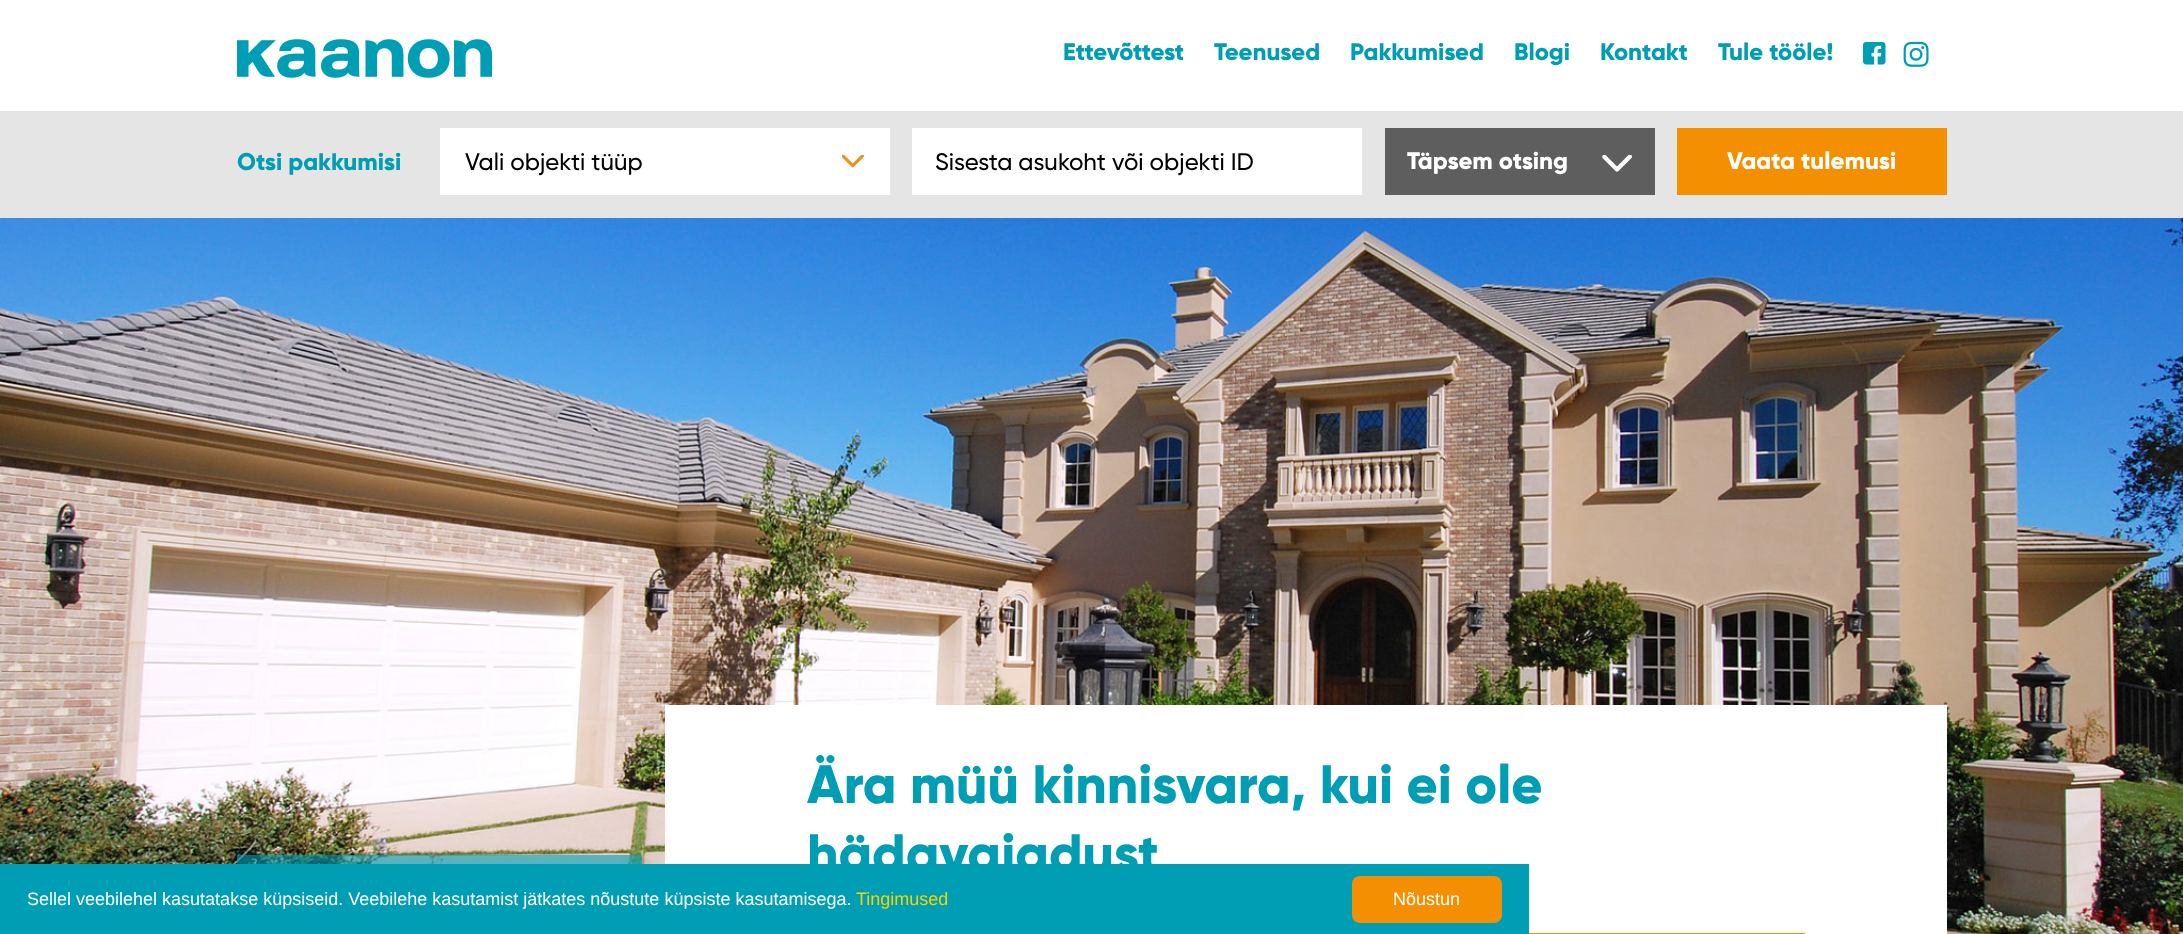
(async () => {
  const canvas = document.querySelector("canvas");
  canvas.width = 2183;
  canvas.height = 934;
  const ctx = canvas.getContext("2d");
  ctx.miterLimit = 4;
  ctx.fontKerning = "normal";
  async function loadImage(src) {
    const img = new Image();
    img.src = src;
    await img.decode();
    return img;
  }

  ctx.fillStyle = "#ffffff";
  ctx.fillRect(0, 0, 2183, 934);
  ctx.drawImage(await loadImage("img/1.png"), 237, 39, 255, 39);
  ctx.drawImage(await loadImage("img/2.png"), 1863, 42, 23, 23);
  ctx.drawImage(await loadImage("img/3.png"), 1903, 41, 26, 26);
  ctx.fillStyle = "#e5e5e5";
  ctx.fillRect(0, 111, 2183, 107);
  ctx.fillStyle = "#ffffff";
  ctx.fillRect(440, 128, 450, 67);
  ctx.drawImage(await loadImage("img/4.png"), 841, 154, 23, 14);
  ctx.fillRect(912, 128, 450, 67);
  ctx.fillStyle = "#5e5e5e";
  ctx.fillRect(1385, 128, 270, 67);
  ctx.drawImage(await loadImage("img/5.png"), 1602, 154, 30, 18);
  ctx.fillStyle = "#f38f00";
  ctx.fillRect(1677, 128, 270, 67);
  ctx.drawImage(await loadImage("img/6.png"), 0, 218, 2183, 716);
  for (const [x, y, w, h, color] of [
    [237, 855, 405, 9, "rgba(0, 158, 181, 0.6)"],
    [665, 705, 1282, 229, "#ffffff"],
    [1529, 933, 276, 1, "#f38f00"],
    [0, 864, 1529, 70, "#009eb5"],
  ]) {
    ctx.fillStyle = color;
    ctx.fillRect(x, y, w, h);
  }
  ctx.fillStyle = "#f38f00";
  ctx.beginPath();
  ctx.roundRect(1352, 876, 150, 47, 8);
  ctx.fill();
  ctx.font = "800 24px Gilroy";
  ctx.fillStyle = "#009eb5";
  for (const [text, x, y] of [
    ["Ettevõttest", 1063, 60],
    ["Teenused", 1214, 60],
    ["Pakkumised", 1350, 60],
    ["Blogi", 1514, 60],
    ["Kontakt", 1600, 60],
    ["Tule tööle!", 1718, 60],
    ["Otsi pakkumisi", 237, 170],
  ]) {
    ctx.fillText(text, x, y);
  }
  ctx.font = "500 24px Gilroy";
  ctx.fillStyle = "#000000";
  ctx.fillText("Vali objekti tüüp", 465, 170);
  ctx.fillText("Sisesta asukoht või objekti ID", 935, 170);
  ctx.font = "800 24px Gilroy";
  ctx.fillStyle = "#ffffff";
  ctx.fillText("Täpsem otsing", 1407, 169);
  ctx.fillText("Vaata tulemusi", 1727, 169);
  ctx.font = "800 54px Gilroy";
  ctx.fillStyle = "#009eb5";
  ctx.fillText("Ära müü kinnisvara, kui ei ole", 807, 803);
  ctx.fillText("hädavajadust", 807, 872);
  ctx.font = "18px Liberation Sans";
  ctx.fillStyle = "#ffffff";
  ctx.fillText("Sellel veebilehel kasutatakse küpsiseid. Veebilehe kasutamist jätkates nõustute küpsiste kasutamisega.", 27, 905);
  ctx.fillStyle = "#f1d600";
  ctx.fillText("Tingimused", 856, 905);
  ctx.fillStyle = "#ffffff";
  ctx.fillText("Nõustun", 1393, 905);
})();
